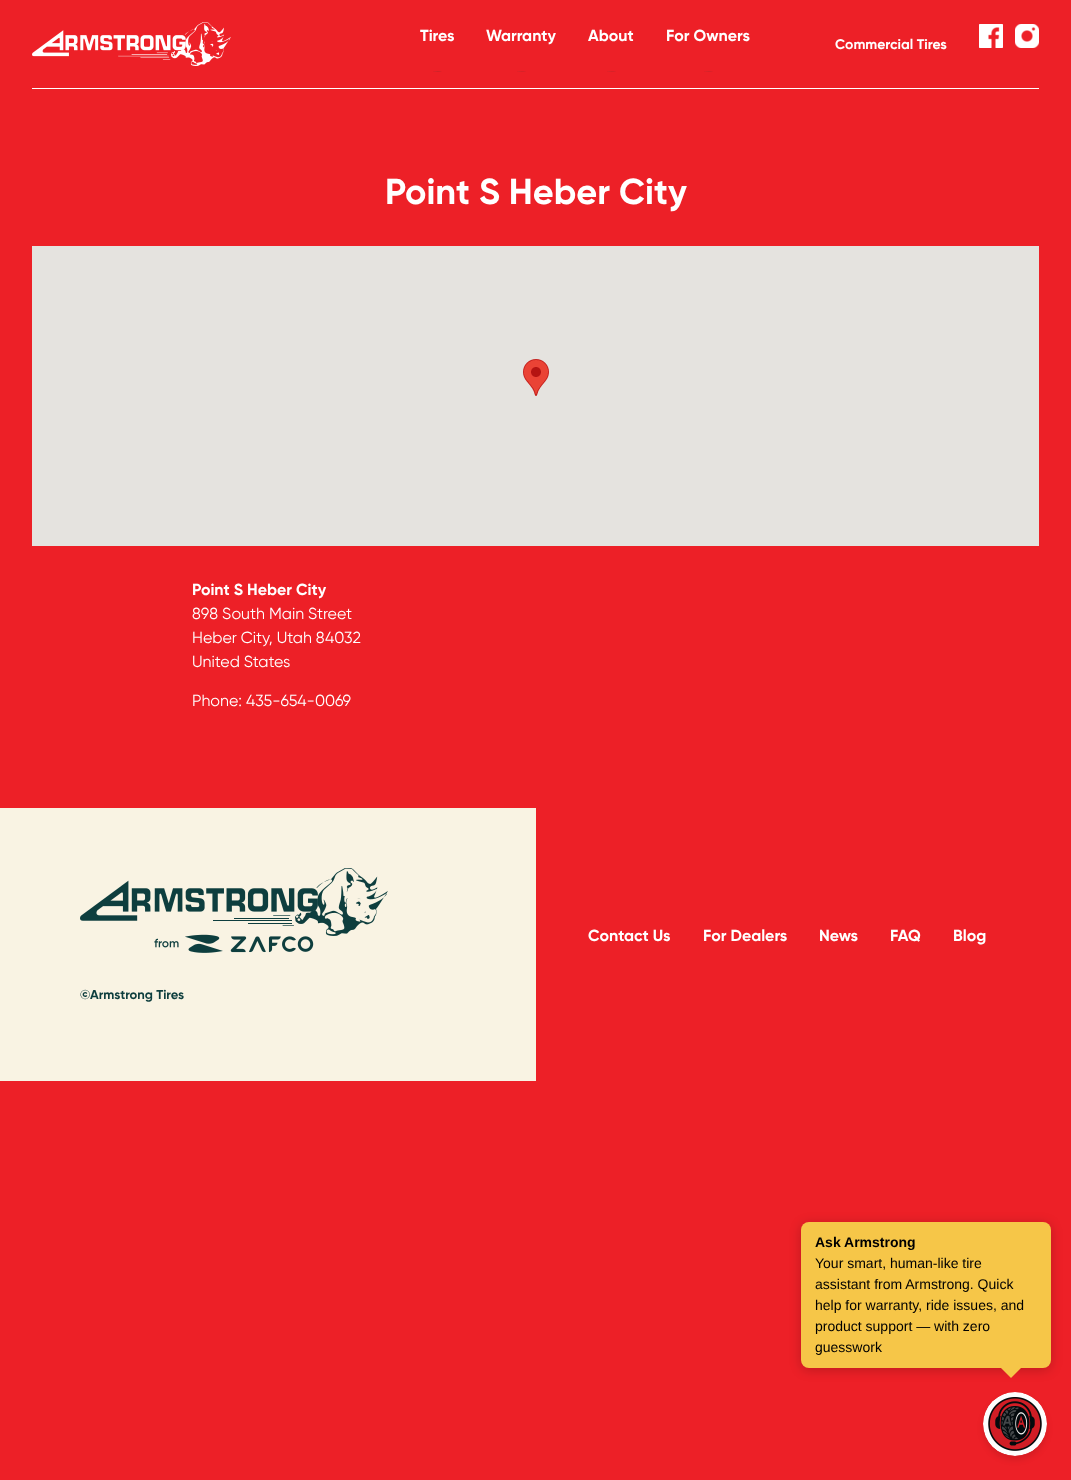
(async () => {
  const canvas = document.querySelector("canvas");
  canvas.width = 1071;
  canvas.height = 1480;
  const ctx = canvas.getContext("2d");
  ctx.miterLimit = 4;
  ctx.fontKerning = "normal";
  async function loadImage(src) {
    const img = new Image();
    img.src = src;
    await img.decode();
    return img;
  }
  let path;

  ctx.fillStyle = "#ed2027";
  ctx.fillRect(0, 0, 1071, 1480);
  ctx.fillStyle = "#ffffff";
  ctx.fillRect(32, 88, 1007, 1);
  ctx.drawImage(await loadImage("img/1.png"), 32, 22, 199, 44);
  ctx.drawImage(await loadImage("img/2.png"), 433, 71, 9, 1);
  ctx.drawImage(await loadImage("img/3.png"), 517, 71, 9, 1);
  ctx.drawImage(await loadImage("img/3.png"), 607, 71, 9, 1);
  ctx.drawImage(await loadImage("img/3.png"), 704, 71, 9, 1);
  ctx.drawImage(await loadImage("img/4.png"), 979, 24, 24, 24);
  ctx.drawImage(await loadImage("img/5.png"), 1015, 24, 24, 24);
  ctx.fillStyle = "#e5e3df";
  ctx.fillRect(32, 246, 1007, 300);
  ctx.drawImage(await loadImage("img/6.png"), 523, 359, 26, 37);
  ctx.fillStyle = "#f9f3e3";
  ctx.fillRect(0, 808, 536, 273);
  ctx.drawImage(await loadImage("img/7.png"), 80, 868, 308, 85);
  ctx.fillStyle = "rgba(0, 0, 0, 0.2)";
  ctx.filter = "blur(6px)";
  ctx.beginPath();
  ctx.roundRect(801, 1224, 250, 146, 8);
  ctx.fill();
  ctx.filter = "none";
  ctx.fillStyle = "#f6c648";
  ctx.beginPath();
  ctx.roundRect(801, 1222, 250, 146, 8);
  ctx.fill();
  path = new Path2D("M1001 1368H1021L1011 1378Z");
  ctx.fill(path);
  ctx.fillStyle = "rgba(0, 0, 0, 0.1)";
  ctx.filter = "blur(3px)";
  ctx.beginPath();
  ctx.roundRect(983, 1396, 64, 64, 32);
  ctx.fill();
  ctx.filter = "none";
  ctx.drawImage(await loadImage("img/8.png"), 983, 1392, 64, 64);
  ctx.font = "bold 16px Gilroy";
  ctx.fillStyle = "#ffffff";
  for (const [text, x, y] of [
    ["Tires", 420, 41],
    ["Warranty", 486, 41],
    ["About", 588, 41],
    ["For Owners", 666, 41],
  ]) {
    ctx.fillText(text, x, y);
  }
  ctx.font = "bold 14px Gilroy";
  ctx.fillText("Commercial Tires", 835, 49);
  ctx.font = "bold 36px Gilroy";
  ctx.fillText("Point S Heber City", 385, 204);
  ctx.font = "bold 16px Gilroy";
  ctx.fillText("Point S Heber City", 192, 595);
  ctx.font = "16px Gilroy";
  for (const [text, x, y] of [
    ["898 South Main Street", 192, 619],
    ["Heber City, Utah 84032", 192, 643],
    ["United States", 192, 667],
    ["Phone: 435-654-0069", 192, 706],
  ]) {
    ctx.fillText(text, x, y);
  }
  ctx.font = "bold 16px Gilroy";
  for (const [text, x, y] of [
    ["Contact Us", 588, 941],
    ["For Dealers", 703, 941],
    ["News", 819, 941],
    ["FAQ", 890, 941],
    ["Blog", 953, 941],
  ]) {
    ctx.fillText(text, x, y);
  }
  ctx.font = "bold 13px Gilroy";
  ctx.fillStyle = "#0e3e3e";
  ctx.fillText("©Armstrong Tires", 80, 999);
  ctx.font = "bold 14px Liberation Sans";
  ctx.fillStyle = "#000000";
  ctx.fillText("Ask Armstrong", 815, 1247);
  ctx.font = "14px Liberation Sans";
  for (const [text, x, y] of [
    ["Your smart, human-like tire", 815, 1268],
    ["assistant from Armstrong. Quick", 815, 1289],
    ["help for warranty, ride issues, and", 815, 1310],
    ["product support — with zero", 815, 1331],
    ["guesswork", 815, 1352],
  ]) {
    ctx.fillText(text, x, y);
  }
})();
